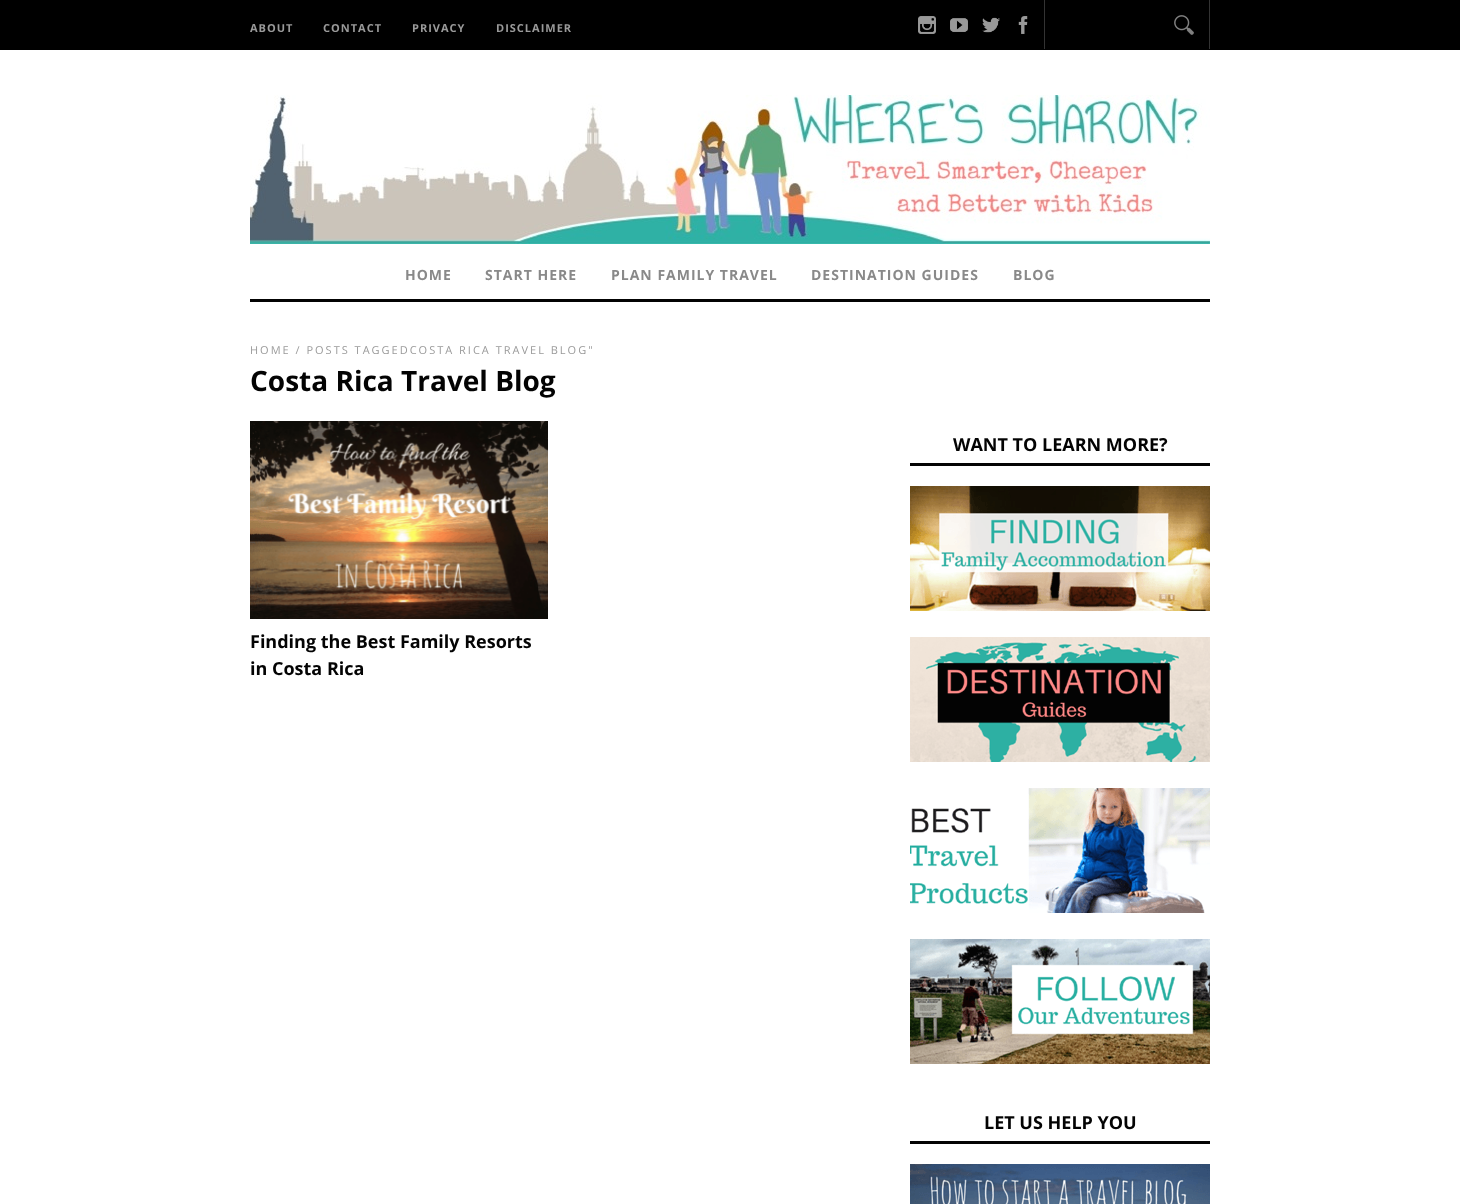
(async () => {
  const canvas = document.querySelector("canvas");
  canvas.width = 1460;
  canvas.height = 1204;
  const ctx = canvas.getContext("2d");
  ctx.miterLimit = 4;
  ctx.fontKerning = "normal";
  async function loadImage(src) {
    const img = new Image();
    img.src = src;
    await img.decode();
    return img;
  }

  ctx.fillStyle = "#ffffff";
  ctx.fillRect(0, 0, 1460, 1204);
  ctx.fillStyle = "#000000";
  ctx.fillRect(0, 0, 1460, 50);
  ctx.drawImage(await loadImage("img/1.png"), 918, 16, 18, 18);
  ctx.drawImage(await loadImage("img/2.png"), 950, 18, 18, 14);
  ctx.drawImage(await loadImage("img/3.png"), 982, 17, 18, 16);
  ctx.drawImage(await loadImage("img/4.png"), 1018, 16, 10, 18);
  ctx.fillStyle = "#333333";
  ctx.fillRect(1209, 0, 1, 49);
  ctx.fillRect(1044, 0, 1, 49);
  ctx.drawImage(await loadImage("img/5.png"), 1174, 15, 20, 20);
  ctx.drawImage(await loadImage("img/6.png"), 250, 95, 960, 149);
  ctx.fillStyle = "#030303";
  ctx.fillRect(250, 299, 960, 3);
  ctx.drawImage(await loadImage("img/7.png"), 250, 421, 298, 198);
  ctx.fillRect(910, 463, 300, 3);
  ctx.drawImage(await loadImage("img/8.png"), 910, 486, 300, 125);
  ctx.drawImage(await loadImage("img/9.png"), 910, 637, 300, 125);
  ctx.drawImage(await loadImage("img/10.png"), 910, 788, 300, 125);
  ctx.drawImage(await loadImage("img/11.png"), 910, 939, 300, 125);
  ctx.fillRect(910, 1141, 300, 3);
  ctx.drawImage(await loadImage("img/12.png"), 910, 1164, 300, 40);
  ctx.letterSpacing = "1px";
  ctx.font = "bold 11px Open Sans";
  ctx.fillStyle = "#9a9a9a";
  for (const [text, x, y] of [
    ["ABOUT", 250, 32],
    ["CONTACT", 323, 32],
    ["PRIVACY", 412, 32],
    ["DISCLAIMER", 496, 32],
  ]) {
    ctx.fillText(text, x, y);
  }
  ctx.font = "bold 14px Open Sans";
  ctx.fillStyle = "#898989";
  for (const [text, x, y] of [
    ["HOME", 405, 280],
    ["START HERE", 485, 280],
    ["PLAN FAMILY TRAVEL", 611, 280],
    ["DESTINATION GUIDES", 811, 280],
    ["BLOG", 1013, 280],
  ]) {
    ctx.fillText(text, x, y);
  }
  ctx.letterSpacing = "2px";
  ctx.font = "11px Open Sans";
  ctx.fillStyle = "#9a9a9a";
  ctx.fillText("HOME / POSTS TAGGEDCOSTA RICA TRAVEL BLOG\"", 250, 354);
  ctx.letterSpacing = "0px";
  ctx.font = "bold 28px Open Sans";
  ctx.fillStyle = "#030303";
  ctx.fillText("Costa Rica Travel Blog", 250, 391);
  ctx.font = "bold 18px Open Sans";
  for (const [text, x, y] of [
    ["Finding the Best Family Resorts", 250, 648],
    ["in Costa Rica", 250, 675],
    ["WANT TO LEARN MORE?", 953, 451],
    ["LET US HELP YOU", 984, 1129],
  ]) {
    ctx.fillText(text, x, y);
  }
})();
